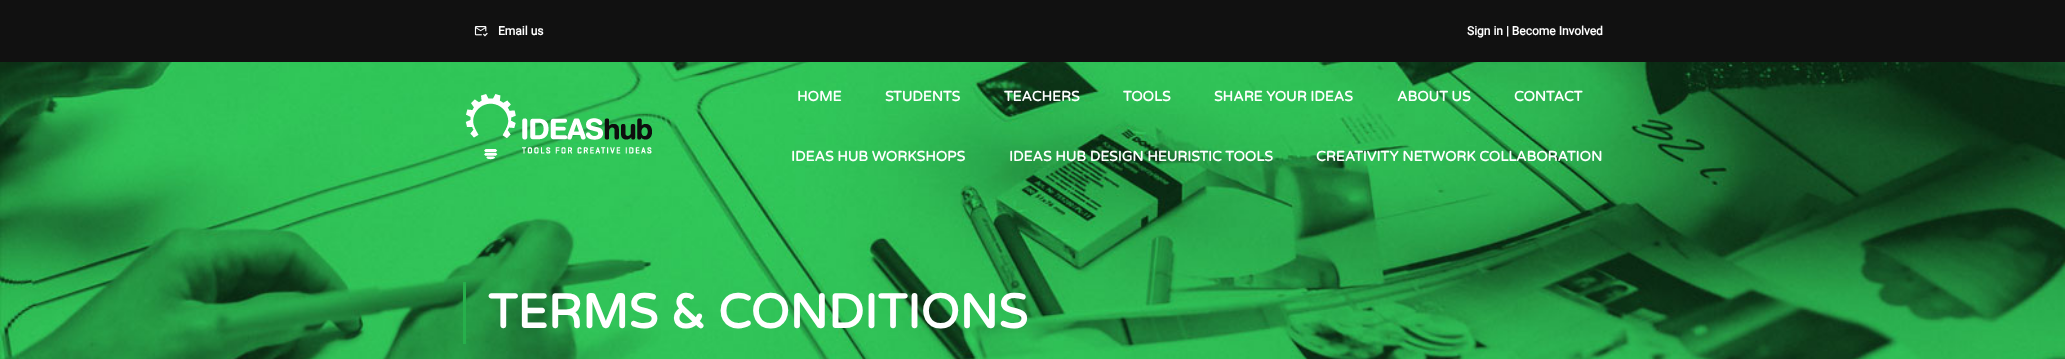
(async () => {
  const canvas = document.querySelector("canvas");
  canvas.width = 2065;
  canvas.height = 359;
  const ctx = canvas.getContext("2d");
  ctx.miterLimit = 4;
  ctx.fontKerning = "normal";
  async function loadImage(src) {
    const img = new Image();
    img.src = src;
    await img.decode();
    return img;
  }

  ctx.fillStyle = "#ffffff";
  ctx.fillRect(0, 0, 2065, 359);
  ctx.fillStyle = "#111111";
  ctx.fillRect(0, 0, 2065, 62);
  ctx.drawImage(await loadImage("img/1.png"), 474, 26, 14, 11);
  ctx.drawImage(await loadImage("img/3.png"), 0, 62, 2065, 297);
  ctx.drawImage(await loadImage("img/2.png"), 465, 94, 187, 66);
  ctx.fillStyle = "#26b04b";
  ctx.fillRect(463, 282, 3, 62);
  ctx.font = "bold 12px Roboto";
  ctx.fillStyle = "#ffffff";
  ctx.fillText("Email us", 498, 35);
  ctx.fillText("Sign in | Become Involved", 1467, 35);
  ctx.font = "bold 14px Varela Round";
  for (const [text, x, y] of [
    ["HOME", 797, 101],
    ["STUDENTS", 885, 101],
    ["TEACHERS", 1004, 101],
    ["TOOLS", 1123, 101],
    ["SHARE YOUR IDEAS", 1214, 101],
    ["ABOUT US", 1397, 101],
    ["CONTACT", 1514, 101],
    ["IDEAS HUB WORKSHOPS", 791, 161],
    ["IDEAS HUB DESIGN HEURISTIC TOOLS", 1009, 161],
    ["CREATIVITY NETWORK COLLABORATION", 1316, 161],
  ]) {
    ctx.fillText(text, x, y);
  }
  ctx.font = "bold 48px Varela Round";
  ctx.fillText("TERMS & CONDITIONS", 488, 328);
})();
